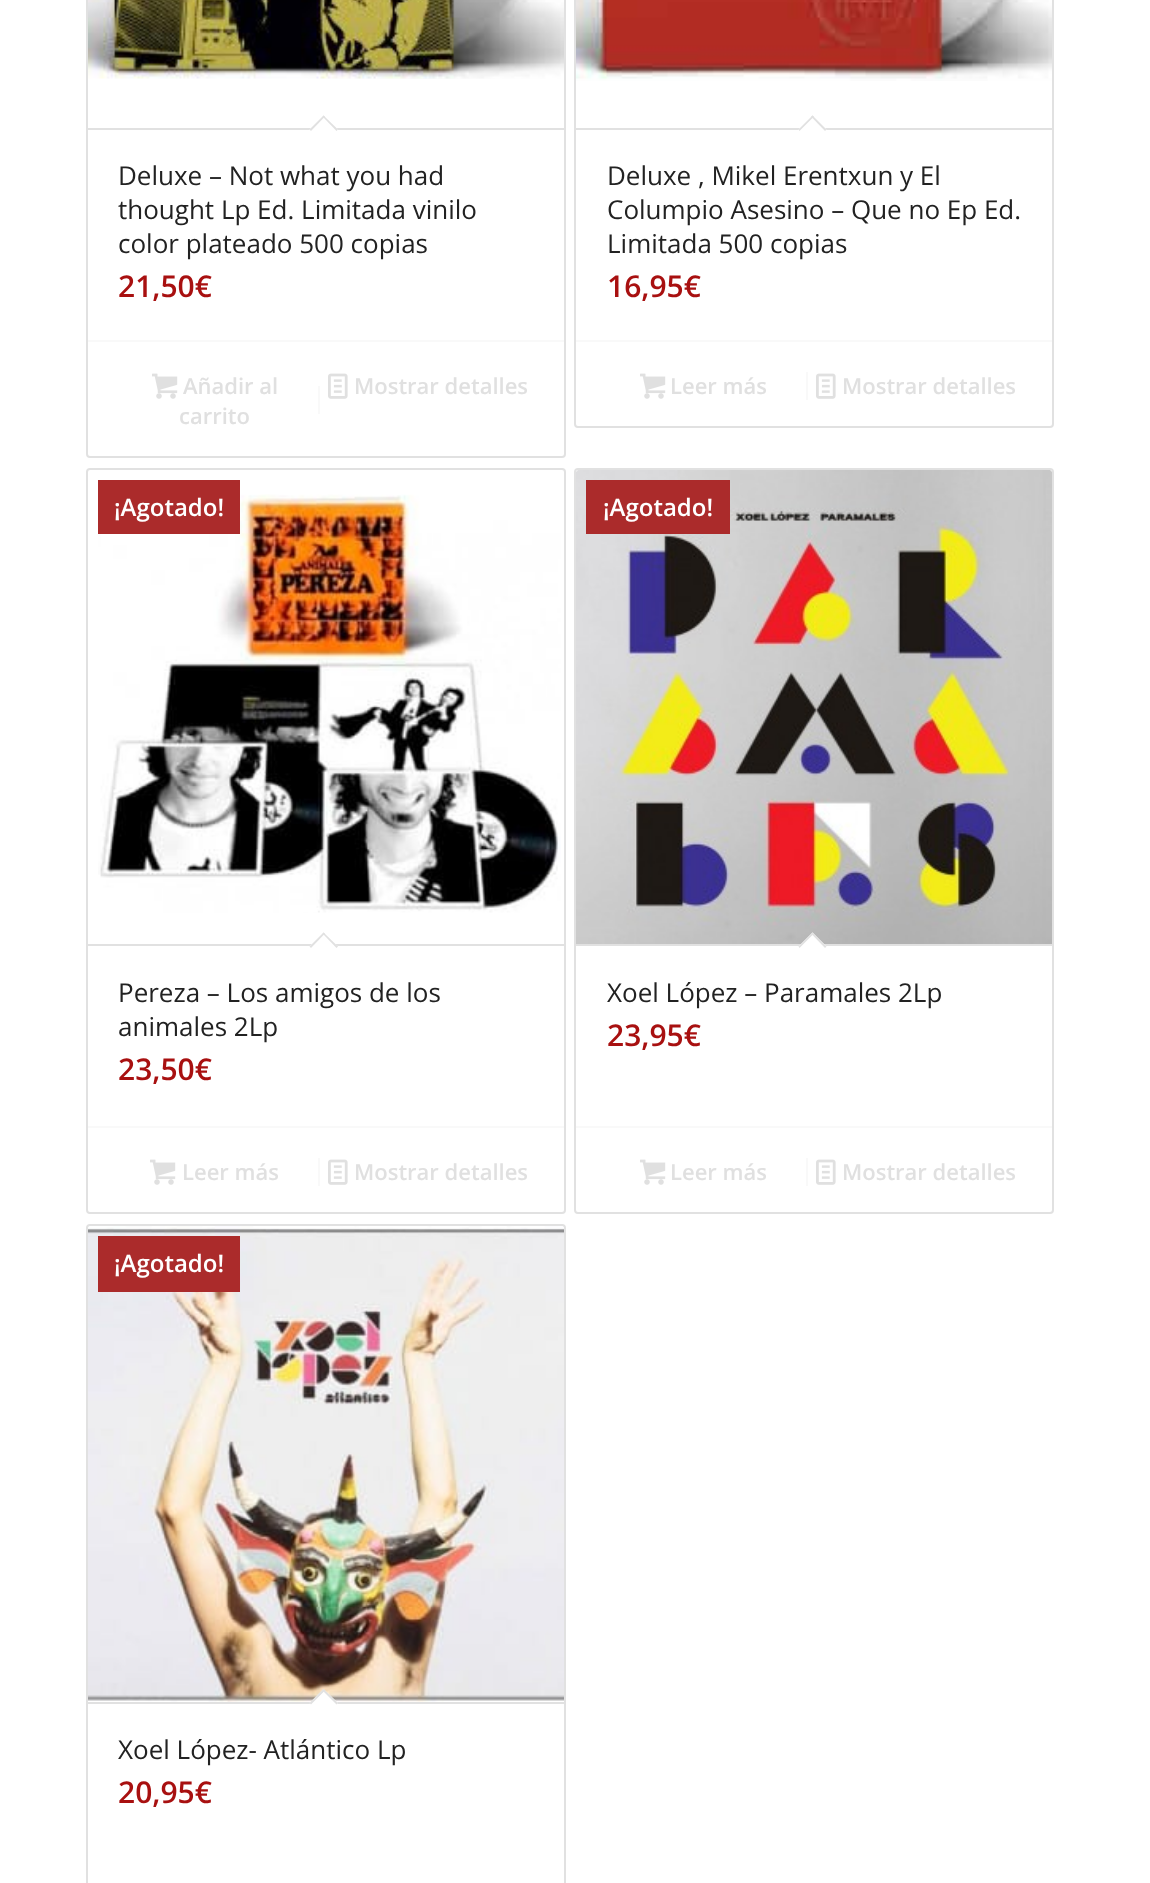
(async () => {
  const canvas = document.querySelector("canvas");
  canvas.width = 1150;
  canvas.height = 1883;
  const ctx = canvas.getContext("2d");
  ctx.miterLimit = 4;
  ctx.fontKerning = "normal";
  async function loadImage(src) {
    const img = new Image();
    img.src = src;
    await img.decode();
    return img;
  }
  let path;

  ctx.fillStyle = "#ffffff";
  ctx.fillRect(0, 0, 1150, 1883);
  ctx.beginPath();
  ctx.roundRect(87, -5, 478, 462, 3);
  ctx.strokeStyle = "#e1e1e1";
  ctx.lineWidth = 2;
  ctx.stroke();
  ctx.drawImage(await loadImage("img/1.png"), 88, 0, 476, 79);
  ctx.fillStyle = "#e1e1e1";
  ctx.fillRect(88, 128, 476, 2);
  ctx.fillStyle = "#ffffff";
  path = new Path2D("M323.5 115.5L338 129.5L323.5 143.5L309.5 129.5Z");
  ctx.fill(path);
  ctx.fillStyle = "#e1e1e1";
  path = new Path2D("M323.5 115.5L338 129.5L336.5 131L322.5 116.5Z");
  ctx.fill(path);
  path = new Path2D("M323.5 115.5L325 116.5L311 131L309.5 129.5Z");
  ctx.fill(path);
  ctx.fillStyle = "#f9f9f9";
  ctx.fillRect(88, 340, 476, 2);
  ctx.drawImage(await loadImage("img/2.png"), 152, 373, 26, 26);
  ctx.fillRect(318, 386, 2, 28);
  ctx.drawImage(await loadImage("img/3.png"), 328, 373, 20, 26);
  ctx.beginPath();
  ctx.roundRect(575, -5, 478, 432, 3);
  ctx.stroke();
  ctx.drawImage(await loadImage("img/4.png"), 576, 0, 476, 81);
  ctx.fillStyle = "#e1e1e1";
  ctx.fillRect(576, 128, 476, 2);
  ctx.fillStyle = "#ffffff";
  path = new Path2D("M812.5 115.5L826.5 129.5L812.5 143.5L798.5 129.5Z");
  ctx.fill(path);
  ctx.fillStyle = "#e1e1e1";
  path = new Path2D("M812.5 115.5L826.5 129.5L825 131L811 116.5Z");
  ctx.fill(path);
  path = new Path2D("M812.5 115.5L814 116.5L799.5 131L798.5 129.5Z");
  ctx.fill(path);
  ctx.fillStyle = "#f9f9f9";
  ctx.fillRect(576, 340, 476, 2);
  ctx.drawImage(await loadImage("img/2.png"), 640, 373, 26, 26);
  ctx.fillRect(806, 372, 2, 28);
  ctx.drawImage(await loadImage("img/3.png"), 816, 373, 20, 26);
  ctx.beginPath();
  ctx.roundRect(87, 469, 478, 744, 3);
  ctx.stroke();
  ctx.drawImage(await loadImage("img/5.png"), 98, 494, 463, 419);
  ctx.fillStyle = "#ab2b2b";
  ctx.fillRect(98, 480, 142, 54);
  ctx.fillStyle = "#e1e1e1";
  ctx.fillRect(88, 944, 476, 2);
  ctx.fillStyle = "#ffffff";
  path = new Path2D("M323.5 932.5L338 946.5L323.5 960.5L309.5 946.5Z");
  ctx.fill(path);
  ctx.fillStyle = "#e1e1e1";
  path = new Path2D("M323.5 932.5L338 946.5L336.5 948L322.5 933.5Z");
  ctx.fill(path);
  path = new Path2D("M323.5 932.5L325 933.5L311 948L309.5 946.5Z");
  ctx.fill(path);
  ctx.fillStyle = "#f9f9f9";
  ctx.fillRect(88, 1126, 476, 2);
  ctx.drawImage(await loadImage("img/2.png"), 150, 1159, 26, 26);
  ctx.fillRect(318, 1158, 2, 28);
  ctx.drawImage(await loadImage("img/3.png"), 328, 1159, 20, 26);
  ctx.beginPath();
  ctx.roundRect(575, 469, 478, 744, 3);
  ctx.stroke();
  ctx.drawImage(await loadImage("img/6.png"), 576, 470, 476, 474);
  ctx.fillStyle = "#ab2b2b";
  ctx.fillRect(586, 480, 144, 54);
  ctx.fillStyle = "#e1e1e1";
  ctx.fillRect(576, 944, 476, 2);
  ctx.fillStyle = "#ffffff";
  path = new Path2D("M812.5 932.5L826.5 946.5L812.5 960.5L798.5 946.5Z");
  ctx.fill(path);
  ctx.fillStyle = "#e1e1e1";
  path = new Path2D("M812.5 932.5L826.5 946.5L825 948L811 933.5Z");
  ctx.fill(path);
  path = new Path2D("M812.5 932.5L814 933.5L799.5 948L798.5 946.5Z");
  ctx.fill(path);
  ctx.fillStyle = "#f9f9f9";
  ctx.fillRect(576, 1126, 476, 2);
  ctx.drawImage(await loadImage("img/2.png"), 640, 1159, 26, 26);
  ctx.fillRect(806, 1158, 2, 28);
  ctx.drawImage(await loadImage("img/3.png"), 816, 1159, 20, 26);
  ctx.beginPath();
  ctx.roundRect(87, 1225, 478, 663, 3);
  ctx.stroke();
  ctx.drawImage(await loadImage("img/7.png"), 88, 1226, 476, 476);
  ctx.fillStyle = "#ab2b2b";
  ctx.fillRect(98, 1236, 142, 56);
  ctx.fillStyle = "#e1e1e1";
  ctx.fillRect(88, 1702, 476, 2);
  ctx.fillStyle = "#ffffff";
  path = new Path2D("M323.5 1689L338 1703L323.5 1717.5L309.5 1703Z");
  ctx.fill(path);
  ctx.fillStyle = "#e1e1e1";
  path = new Path2D("M323.5 1689L338 1703L336.5 1704.5L322.5 1690.5Z");
  ctx.fill(path);
  path = new Path2D("M323.5 1689L325 1690.5L311 1704.5L309.5 1703Z");
  ctx.fill(path);
  ctx.font = "26px Open Sans";
  ctx.fillStyle = "#222222";
  for (const [text, x, y] of [
    ["Deluxe – Not what you had", 118, 185],
    ["thought Lp Ed. Limitada vinilo", 118, 219],
    ["color plateado 500 copias", 118, 253],
  ]) {
    ctx.fillText(text, x, y);
  }
  ctx.font = "600 30px Open Sans";
  ctx.fillStyle = "#a81010";
  ctx.fillText("21,50€", 118, 297);
  ctx.font = "600 22px Open Sans";
  ctx.fillStyle = "#e0e0e0";
  for (const [text, x, y] of [
    ["Añadir al", 183, 394],
    ["carrito", 179, 424],
    ["Mostrar detalles", 354, 394],
  ]) {
    ctx.fillText(text, x, y);
  }
  ctx.font = "26px Open Sans";
  ctx.fillStyle = "#222222";
  for (const [text, x, y] of [
    ["Deluxe , Mikel Erentxun y El", 607, 185],
    ["Columpio Asesino – Que no Ep Ed.", 607, 219],
    ["Limitada 500 copias", 607, 253],
  ]) {
    ctx.fillText(text, x, y);
  }
  ctx.font = "600 30px Open Sans";
  ctx.fillStyle = "#a81010";
  ctx.fillText("16,95€", 607, 297);
  ctx.font = "600 22px Open Sans";
  ctx.fillStyle = "#e0e0e0";
  ctx.fillText("Leer más", 670, 394);
  ctx.fillText("Mostrar detalles", 842, 394);
  ctx.font = "600 24px Open Sans";
  ctx.fillStyle = "#ffffff";
  ctx.fillText("¡Agotado!", 114, 516);
  ctx.font = "26px Open Sans";
  ctx.fillStyle = "#222222";
  ctx.fillText("Pereza – Los amigos de los", 118, 1002);
  ctx.fillText("animales 2Lp", 118, 1036);
  ctx.font = "600 30px Open Sans";
  ctx.fillStyle = "#a81010";
  ctx.fillText("23,50€", 118, 1080);
  ctx.font = "600 22px Open Sans";
  ctx.fillStyle = "#e0e0e0";
  ctx.fillText("Leer más", 182, 1180);
  ctx.fillText("Mostrar detalles", 354, 1180);
  ctx.font = "600 24px Open Sans";
  ctx.fillStyle = "#ffffff";
  ctx.fillText("¡Agotado!", 603, 516);
  ctx.font = "26px Open Sans";
  ctx.fillStyle = "#222222";
  ctx.fillText("Xoel López – Paramales 2Lp", 607, 1002);
  ctx.font = "600 30px Open Sans";
  ctx.fillStyle = "#a81010";
  ctx.fillText("23,95€", 607, 1046);
  ctx.font = "600 22px Open Sans";
  ctx.fillStyle = "#e0e0e0";
  ctx.fillText("Leer más", 670, 1180);
  ctx.fillText("Mostrar detalles", 842, 1180);
  ctx.font = "600 24px Open Sans";
  ctx.fillStyle = "#ffffff";
  ctx.fillText("¡Agotado!", 114, 1272);
  ctx.font = "26px Open Sans";
  ctx.fillStyle = "#222222";
  ctx.fillText("Xoel López- Atlántico Lp", 118, 1759);
  ctx.font = "600 30px Open Sans";
  ctx.fillStyle = "#a81010";
  ctx.fillText("20,95€", 118, 1803);
})();
